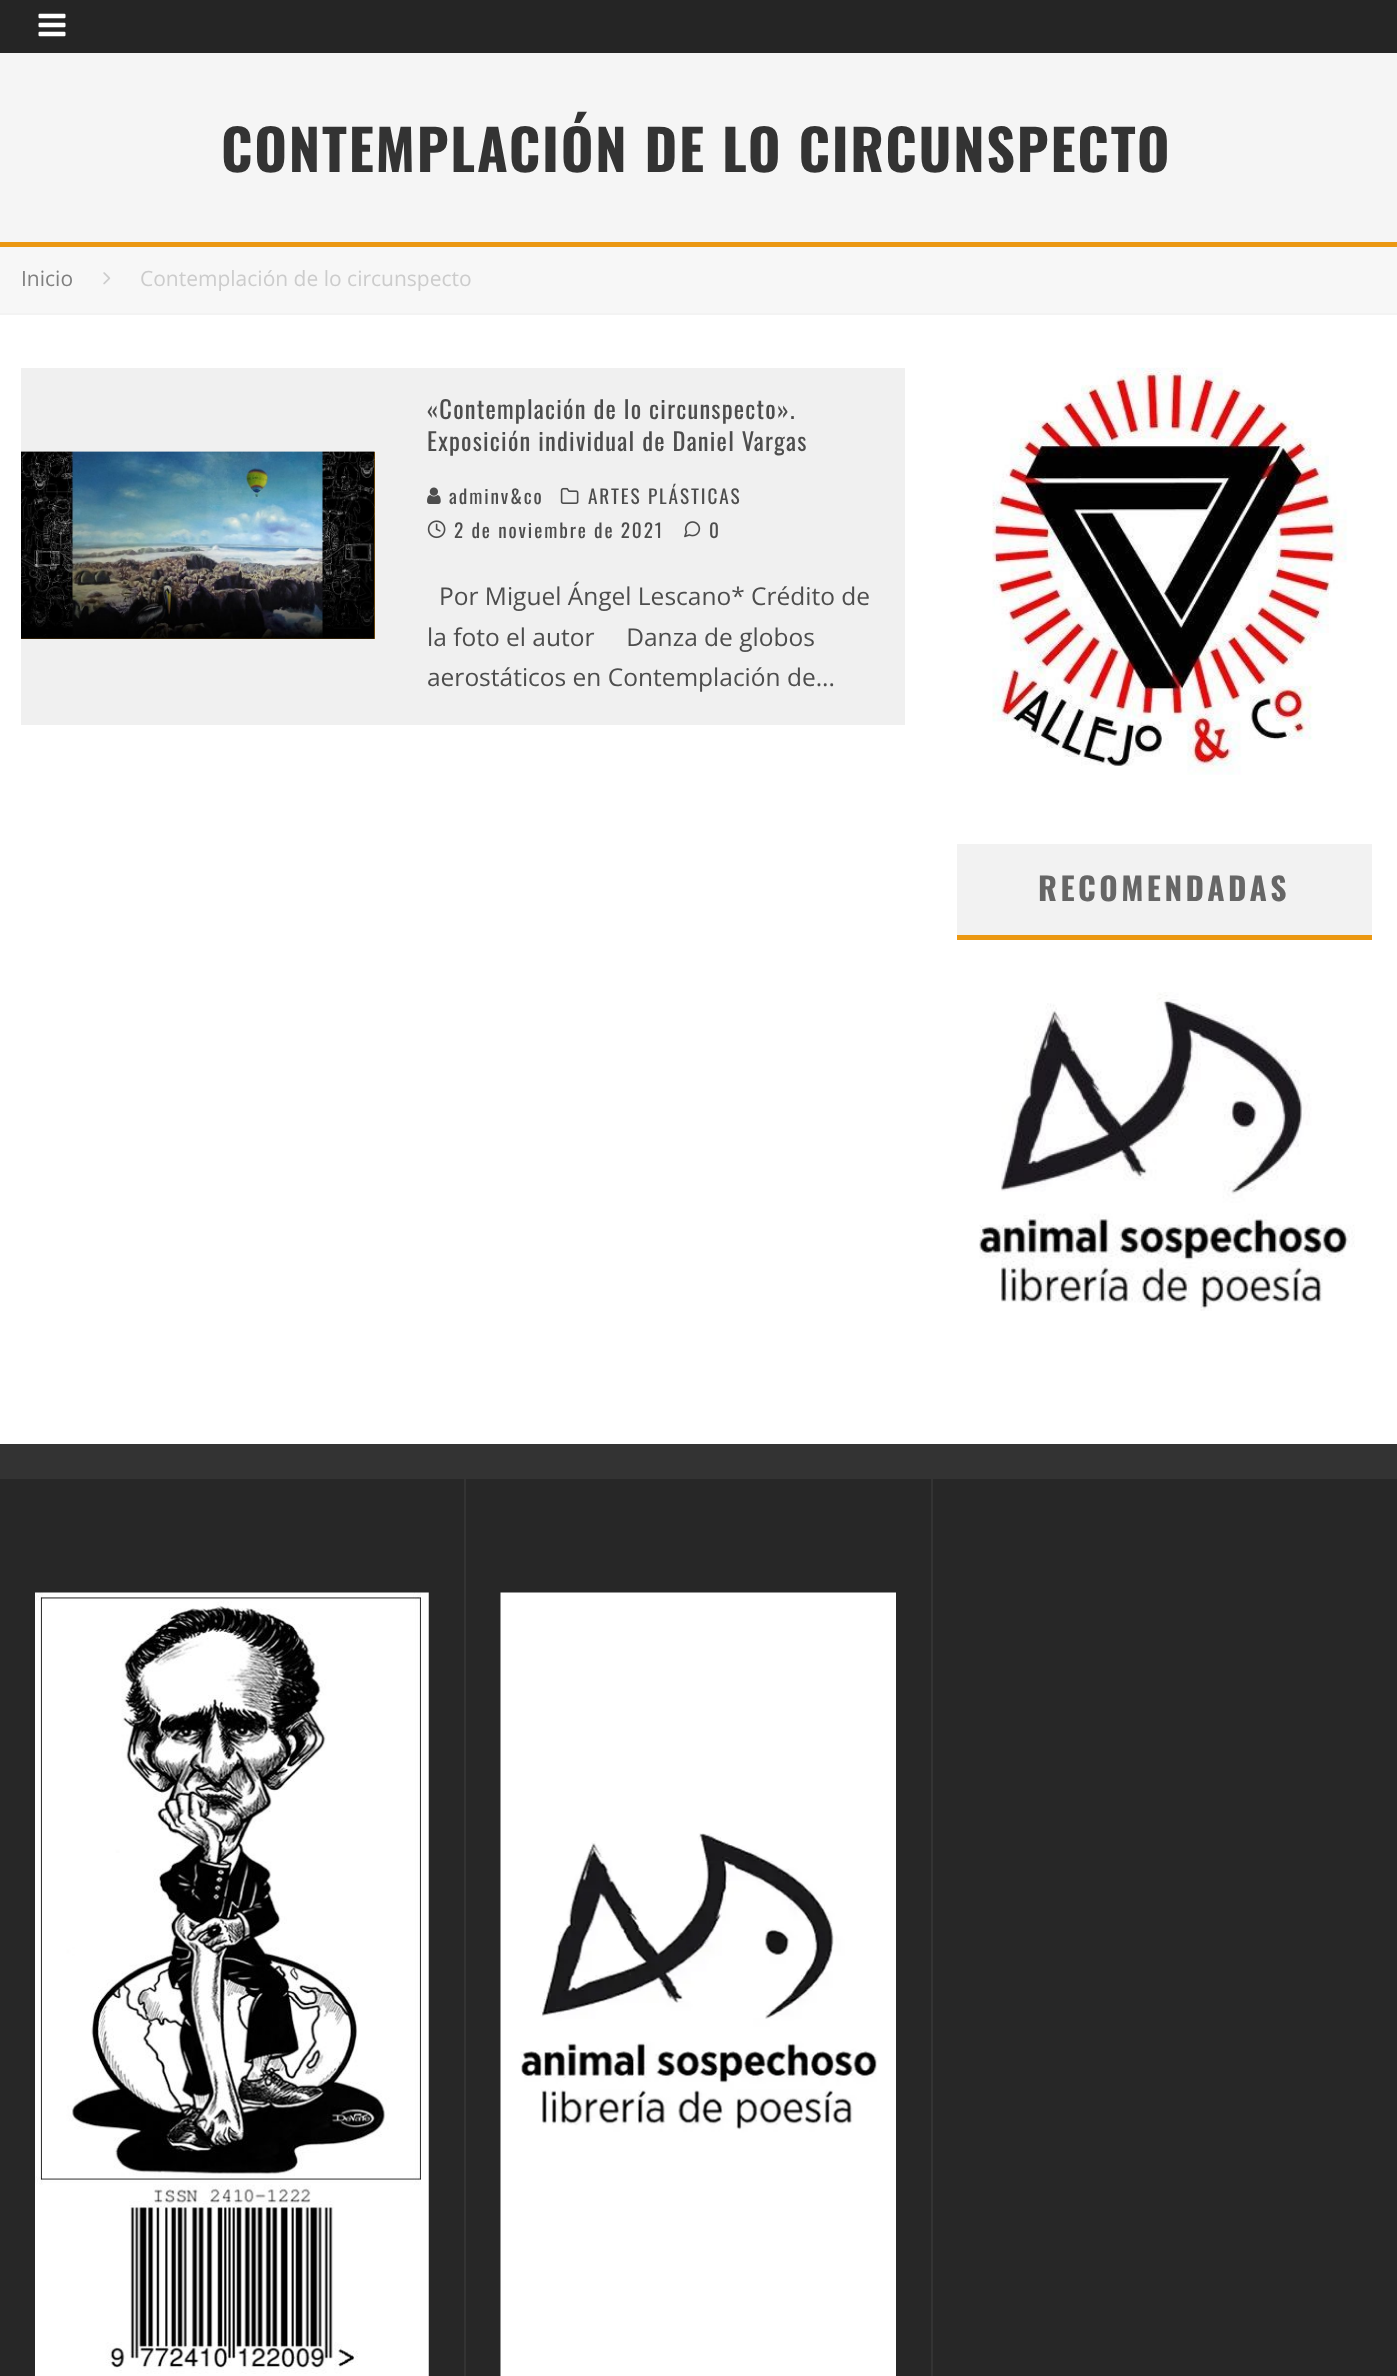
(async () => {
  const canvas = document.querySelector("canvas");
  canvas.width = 1397;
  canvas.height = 2376;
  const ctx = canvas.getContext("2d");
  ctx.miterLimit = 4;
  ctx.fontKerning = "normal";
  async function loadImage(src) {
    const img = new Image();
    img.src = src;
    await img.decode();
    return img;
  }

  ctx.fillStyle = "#ffffff";
  ctx.fillRect(0, 0, 1397, 2376);
  ctx.fillStyle = "#252525";
  ctx.fillRect(0, 0, 1397, 53);
  ctx.drawImage(await loadImage("img/1.png"), 38, 13, 28, 24);
  for (const [x, y, w, h, color] of [
    [0, 53, 1397, 189, "#f5f5f5"],
    [0, 242, 1397, 5, "#eb9812"],
    [0, 247, 1397, 66, "#f7f7f7"],
    [0, 313, 1397, 2, "#f3f3f3"],
  ]) {
    ctx.fillStyle = color;
    ctx.fillRect(x, y, w, h);
  }
  ctx.drawImage(await loadImage("img/2.png"), 103, 272, 8, 13);
  ctx.fillStyle = "#f0f0f0";
  ctx.fillRect(21, 368, 884, 357);
  ctx.fillStyle = "#eb9812";
  ctx.fillRect(21, 452, 354, 187);
  ctx.drawImage(await loadImage("img/3.png"), 21, 451, 354, 188);
  ctx.drawImage(await loadImage("img/4.png"), 427, 487, 14, 17);
  ctx.drawImage(await loadImage("img/5.png"), 560, 487, 19, 17);
  ctx.drawImage(await loadImage("img/6.png"), 427, 520, 19, 19);
  ctx.drawImage(await loadImage("img/7.png"), 684, 521, 17, 17);
  ctx.drawImage(await loadImage("img/8.png"), 992, 367, 356, 408);
  ctx.fillStyle = "#f2f2f2";
  ctx.fillRect(957, 844, 415, 91);
  ctx.fillStyle = "#eb9812";
  ctx.fillRect(957, 935, 415, 5);
  ctx.drawImage(await loadImage("img/9.png"), 979, 992, 376, 319);
  for (const [x, y, w, h, color] of [
    [0, 1444, 1397, 35, "#333333"],
    [0, 1479, 1397, 897, "#272727"],
    [464, 1479, 2, 897, "#333333"],
  ]) {
    ctx.fillStyle = color;
    ctx.fillRect(x, y, w, h);
  }
  ctx.drawImage(await loadImage("img/10.png"), 35, 1592, 394, 784);
  ctx.fillRect(931, 1479, 2, 897);
  ctx.drawImage(await loadImage("img/11.png"), 500, 1592, 396, 784);
  ctx.letterSpacing = "1.75px";
  ctx.font = "bold 56px Oswald";
  ctx.fillText("CONTEMPLACIÓN DE LO CIRCUNSPECTO", 221, 172);
  ctx.letterSpacing = "0px";
  ctx.font = "21px Open Sans";
  ctx.fillStyle = "#808080";
  ctx.fillText("Inicio", 21, 286);
  ctx.fillStyle = "#cccccc";
  ctx.fillText("Contemplación de lo circunspecto", 140, 286);
  ctx.letterSpacing = "1.2px";
  ctx.font = "24.5px Oswald";
  ctx.fillStyle = "#4d4d4d";
  ctx.fillText("«Contemplación de lo circunspecto».", 427, 419);
  ctx.fillText("Exposición individual de Daniel Vargas", 427, 451);
  ctx.letterSpacing = "1.9px";
  ctx.font = "19.25px Oswald";
  for (const [text, x, y] of [
    ["adminv&co", 449, 504],
    ["ARTES PLÁSTICAS", 588, 504],
    ["2 de noviembre de 2021", 454, 538],
    ["0", 709, 538],
  ]) {
    ctx.fillText(text, x, y);
  }
  ctx.letterSpacing = "0px";
  ctx.font = "24.5px Open Sans";
  for (const [text, x, y] of [
    ["Por Miguel Ángel Lescano* Crédito de", 439, 605],
    ["la foto el autor     Danza de globos", 427, 646],
    ["aerostáticos en Contemplación de...", 427, 686],
  ]) {
    ctx.fillText(text, x, y);
  }
  ctx.letterSpacing = "3.5px";
  ctx.font = "bold 31.5px Oswald";
  ctx.fillStyle = "#666666";
  ctx.fillText("RECOMENDADAS", 1038, 901);
})();
